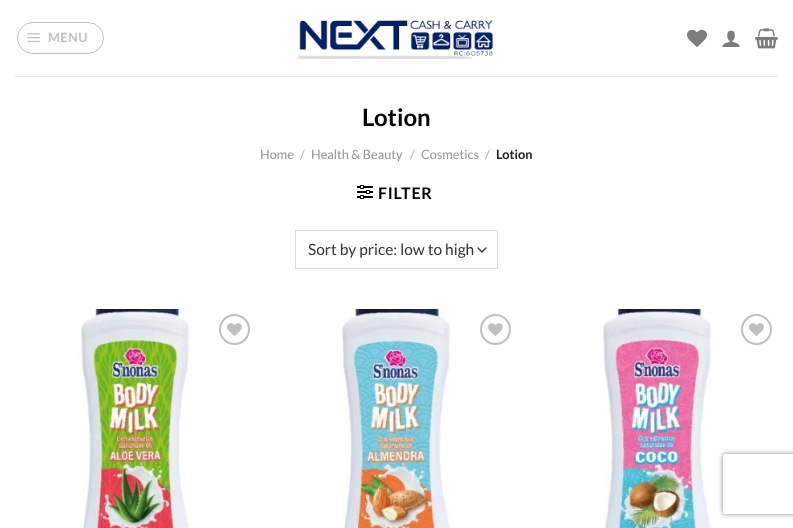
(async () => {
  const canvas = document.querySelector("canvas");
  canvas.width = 793;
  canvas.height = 528;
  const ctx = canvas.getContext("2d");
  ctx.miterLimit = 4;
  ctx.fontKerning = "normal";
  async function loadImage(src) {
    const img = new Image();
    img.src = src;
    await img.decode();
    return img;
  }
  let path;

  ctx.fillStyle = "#ffffff";
  ctx.fillRect(0, 0, 793, 528);
  ctx.beginPath();
  ctx.roundRect(17.5, 22.5, 86, 31, 15.5);
  ctx.strokeStyle = "#c0c0c0";
  ctx.stroke();
  ctx.drawImage(await loadImage("img/1.png"), 27, 33, 13, 10);
  ctx.drawImage(await loadImage("img/2.png"), 297, 20, 196, 39);
  ctx.drawImage(await loadImage("img/3.png"), 687, 29, 20, 18);
  ctx.drawImage(await loadImage("img/4.png"), 722, 30, 18, 17);
  ctx.drawImage(await loadImage("img/5.png"), 755, 28, 23, 21);
  ctx.fillStyle = "#e6e6e6";
  ctx.fillRect(15, 76, 763, 1);
  ctx.drawImage(await loadImage("img/6.png"), 357, 185, 16, 14);
  path = new Path2D("M478 248L482 252L486 248");
  ctx.strokeStyle = "#333333";
  ctx.lineWidth = 1.3;
  ctx.lineCap = "round";
  ctx.lineJoin = "round";
  ctx.stroke(path);
  ctx.strokeStyle = "#dddddd";
  ctx.lineWidth = 1;
  ctx.lineJoin = "miter";
  ctx.strokeRect(295.5, 230.5, 202, 38);
  ctx.drawImage(await loadImage("img/7.png"), 79, 309, 111, 219);
  ctx.beginPath();
  ctx.arc(234.5, 329.5, 14.5, 0, Math.PI * 2);
  ctx.strokeStyle = "#c0c0c0";
  ctx.lineWidth = 2;
  ctx.stroke();
  ctx.drawImage(await loadImage("img/8.png"), 227, 323, 15, 13);
  ctx.drawImage(await loadImage("img/9.png"), 340, 309, 111, 219);
  ctx.beginPath();
  ctx.arc(495.5, 329.5, 14.5, 0, Math.PI * 2);
  ctx.stroke();
  ctx.drawImage(await loadImage("img/8.png"), 488, 323, 15, 13);
  ctx.drawImage(await loadImage("img/10.png"), 601, 309, 111, 219);
  ctx.beginPath();
  ctx.arc(756.5, 329.5, 14.5, 0, Math.PI * 2);
  ctx.stroke();
  ctx.drawImage(await loadImage("img/8.png"), 749, 323, 15, 13);
  ctx.save();
  path = new Path2D("M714 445H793V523H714ZM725 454H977C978 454 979 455 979 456V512C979 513 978 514 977 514H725C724 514 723 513 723 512V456C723 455 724 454 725 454Z");
  ctx.clip(path, "evenodd");
  ctx.fillStyle = "#808080";
  ctx.filter = "blur(2.5px)";
  ctx.beginPath();
  ctx.roundRect(723, 454, 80, 60, 2);
  ctx.fill();
  ctx.filter = "none";
  ctx.restore();
  ctx.letterSpacing = "0.5px";
  ctx.font = "bold 12.75px Lato";
  ctx.fillStyle = "#c0c0c0";
  ctx.fillText("MENU", 48, 42);
  ctx.letterSpacing = "0px";
  ctx.font = "bold 24px Lato";
  ctx.fillStyle = "#000000";
  ctx.fillText("Lotion", 362, 126);
  ctx.font = "12.75px Lato";
  ctx.fillStyle = "#949494";
  ctx.fillText("Home", 260, 159);
  ctx.fillStyle = "#b2b2b2";
  ctx.fillText("/", 300, 159);
  ctx.fillStyle = "#949494";
  ctx.fillText("Health & Beauty", 311, 159);
  ctx.fillStyle = "#b2b2b2";
  ctx.fillText("/", 410, 159);
  ctx.fillStyle = "#949494";
  ctx.fillText("Cosmetics", 421, 159);
  ctx.fillStyle = "#b2b2b2";
  ctx.fillText("/", 485, 159);
  ctx.font = "bold 12.75px Lato";
  ctx.fillStyle = "#222222";
  ctx.fillText("Lotion", 496, 159);
  ctx.letterSpacing = "0.75px";
  ctx.font = "bold 16px Lato";
  ctx.fillStyle = "#000000";
  ctx.fillText("FILTER", 378, 199);
  ctx.letterSpacing = "0px";
  ctx.font = "15.5px Lato";
  ctx.fillStyle = "#333333";
  ctx.fillText("Sort by price: low to high", 308, 255);
})();
